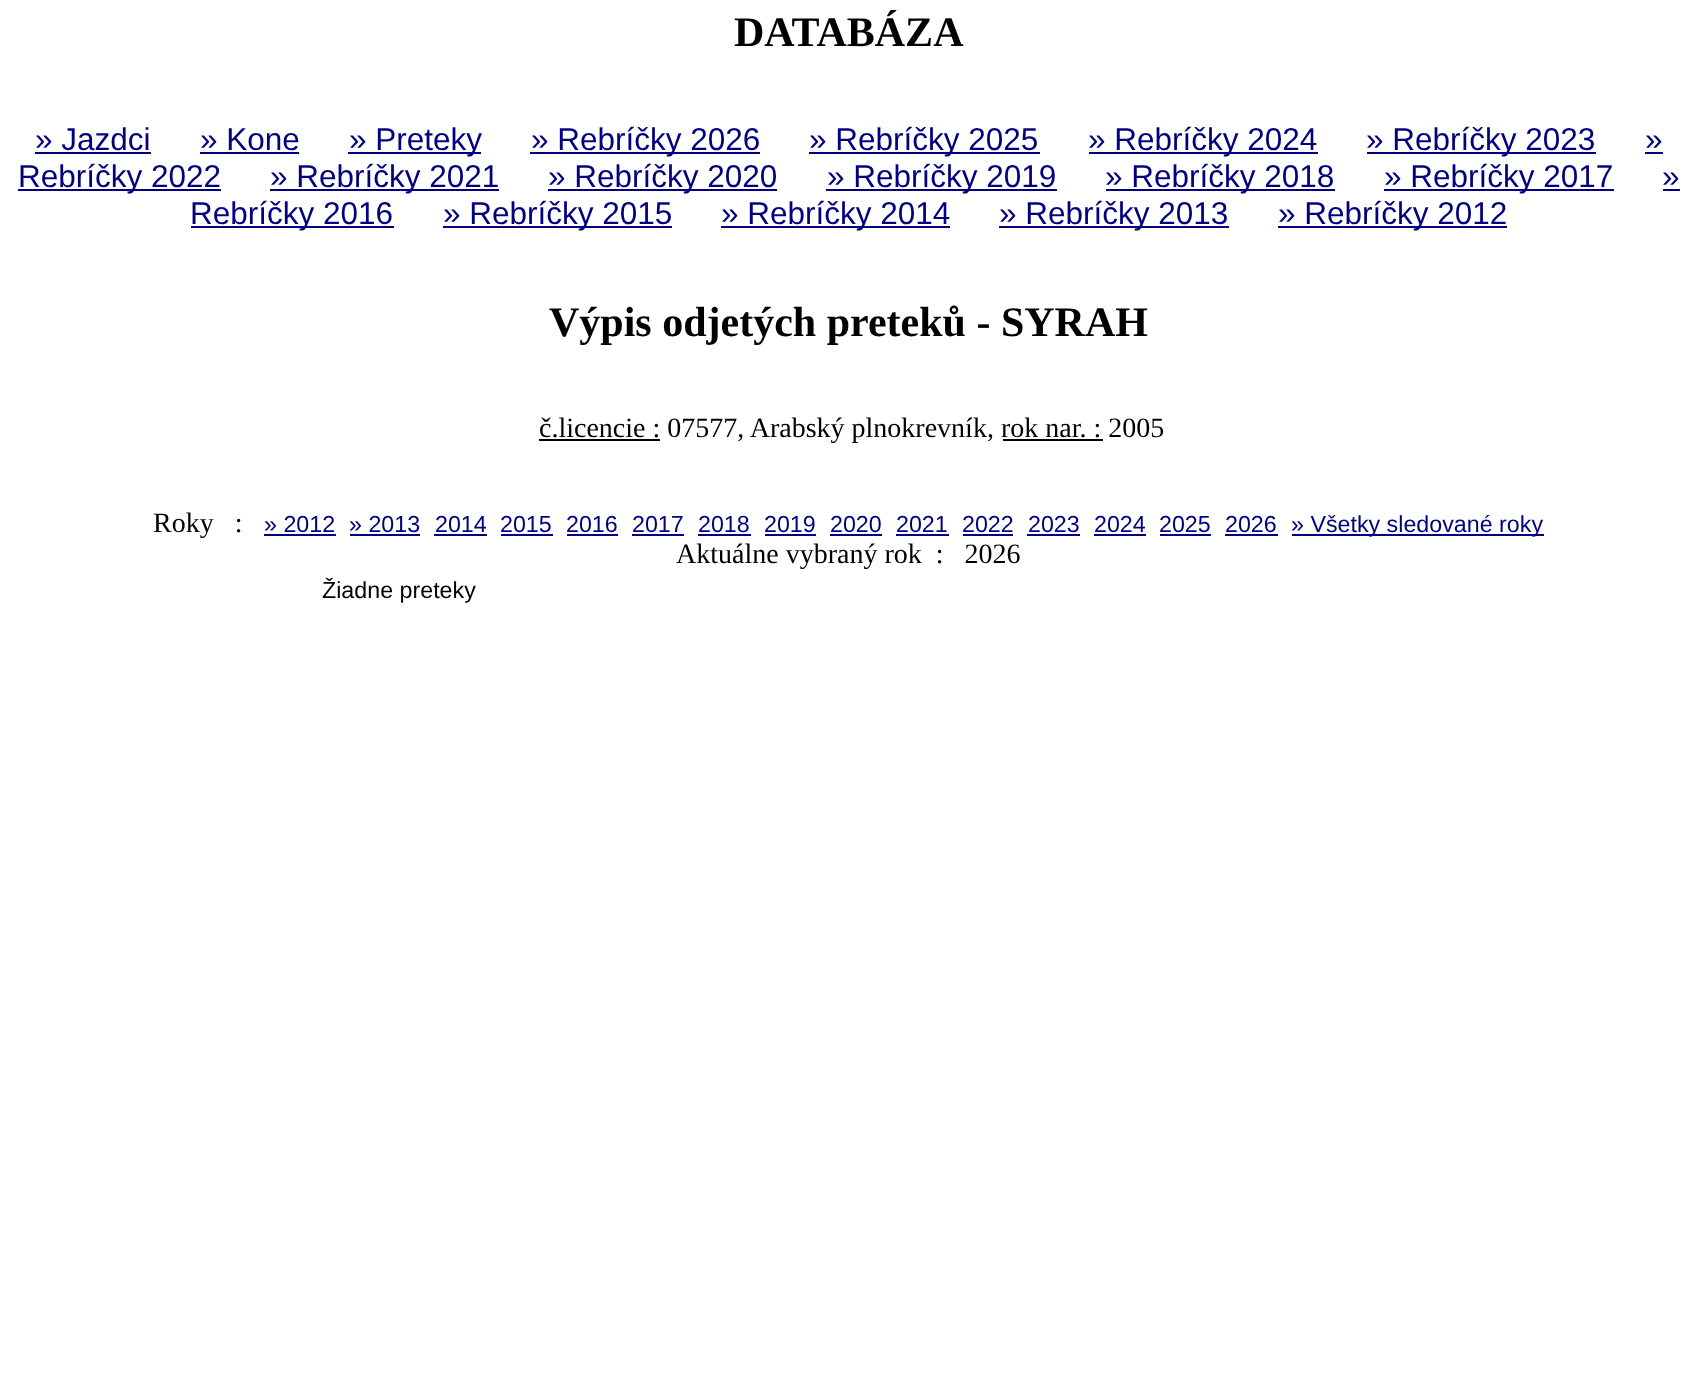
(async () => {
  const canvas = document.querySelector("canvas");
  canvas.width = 1697;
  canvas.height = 1379;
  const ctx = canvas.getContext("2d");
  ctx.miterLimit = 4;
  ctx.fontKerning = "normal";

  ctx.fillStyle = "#ffffff";
  ctx.fillRect(0, 0, 1697, 1379);
  for (const [x, y, w, h, color] of [
    [35, 152, 116, 2, "#000080"],
    [200, 152, 99, 2, "#000080"],
    [348, 152, 133, 2, "#000080"],
    [530, 152, 230, 2, "#000080"],
    [809, 152, 231, 2, "#000080"],
    [1089, 152, 229, 2, "#000080"],
    [1367, 152, 229, 2, "#000080"],
    [1645, 152, 18, 2, "#000080"],
    [18, 189, 203, 2, "#000080"],
    [270, 189, 229, 2, "#000080"],
    [548, 189, 229, 2, "#000080"],
    [826, 189, 231, 2, "#000080"],
    [1106, 189, 229, 2, "#000080"],
    [1384, 189, 230, 2, "#000080"],
    [1663, 189, 17, 2, "#000080"],
    [191, 226, 203, 2, "#000080"],
    [443, 226, 229, 2, "#000080"],
    [721, 226, 229, 2, "#000080"],
    [999, 226, 230, 2, "#000080"],
    [1278, 226, 229, 2, "#000080"],
    [539, 439, 121, 2, "#000000"],
    [1003, 439, 100, 2, "#000000"],
    [264, 534, 72, 2, "#000080"],
    [350, 534, 70, 2, "#000080"],
    [434, 534, 53, 2, "#000080"],
    [501, 534, 52, 2, "#000080"],
    [567, 534, 51, 2, "#000080"],
    [632, 534, 52, 2, "#000080"],
    [698, 534, 53, 2, "#000080"],
    [765, 534, 51, 2, "#000080"],
    [830, 534, 52, 2, "#000080"],
    [896, 534, 53, 2, "#000080"],
    [963, 534, 50, 2, "#000080"],
    [1027, 534, 53, 2, "#000080"],
    [1094, 534, 52, 2, "#000080"],
    [1160, 534, 51, 2, "#000080"],
    [1225, 534, 53, 2, "#000080"],
    [1292, 534, 252, 2, "#000080"],
  ]) {
    ctx.fillStyle = color;
    ctx.fillRect(x, y, w, h);
  }
  ctx.font = "bold 42px Liberation Serif";
  ctx.fillStyle = "#000000";
  ctx.fillText("DATABÁZA", 734, 46);
  ctx.font = "31.5px Liberation Sans";
  ctx.fillStyle = "#000080";
  for (const [text, x, y] of [
    ["» Jazdci", 35, 150],
    ["» Kone", 200, 150],
    ["» Preteky", 349, 150],
    ["» Rebríčky 2026", 531, 150],
    ["» Rebríčky 2025", 809, 150],
    ["» Rebríčky 2024", 1088, 150],
    ["» Rebríčky 2023", 1366, 150],
    ["»", 1645, 150],
    ["Rebríčky 2022", 18, 187],
    ["» Rebríčky 2021", 270, 187],
    ["» Rebríčky 2020", 548, 187],
    ["» Rebríčky 2019", 827, 187],
    ["» Rebríčky 2018", 1105, 187],
    ["» Rebríčky 2017", 1384, 187],
    ["»", 1662, 187],
    ["Rebríčky 2016", 190, 224],
    ["» Rebríčky 2015", 443, 224],
    ["» Rebríčky 2014", 721, 224],
    ["» Rebríčky 2013", 999, 224],
    ["» Rebríčky 2012", 1278, 224],
  ]) {
    ctx.fillText(text, x, y);
  }
  ctx.font = "bold 42px Liberation Serif";
  ctx.fillStyle = "#000000";
  ctx.fillText("Výpis odjetých preteků - SYRAH", 549, 336);
  ctx.font = "28px Liberation Serif";
  ctx.fillText("č.licencie : 07577, Arabský plnokrevník, rok nar. : 2005", 539, 437);
  ctx.fillText("Roky   :", 153, 532);
  ctx.font = "23.25px Liberation Sans";
  ctx.fillStyle = "#000080";
  for (const [text, x, y] of [
    ["» 2012", 264, 532],
    ["» 2013", 349, 532],
    ["2014", 435, 532],
    ["2015", 500, 532],
    ["2016", 566, 532],
    ["2017", 632, 532],
    ["2018", 698, 532],
    ["2019", 764, 532],
    ["2020", 830, 532],
    ["2021", 896, 532],
    ["2022", 962, 532],
    ["2023", 1028, 532],
    ["2024", 1094, 532],
    ["2025", 1159, 532],
    ["2026", 1225, 532],
    ["» Všetky sledované roky", 1291, 532],
  ]) {
    ctx.fillText(text, x, y);
  }
  ctx.font = "28px Liberation Serif";
  ctx.fillStyle = "#000000";
  ctx.fillText("Aktuálne vybraný rok  :   2026", 676, 563);
  ctx.font = "23.25px Liberation Sans";
  ctx.fillText("Žiadne preteky", 322, 598);
})();
